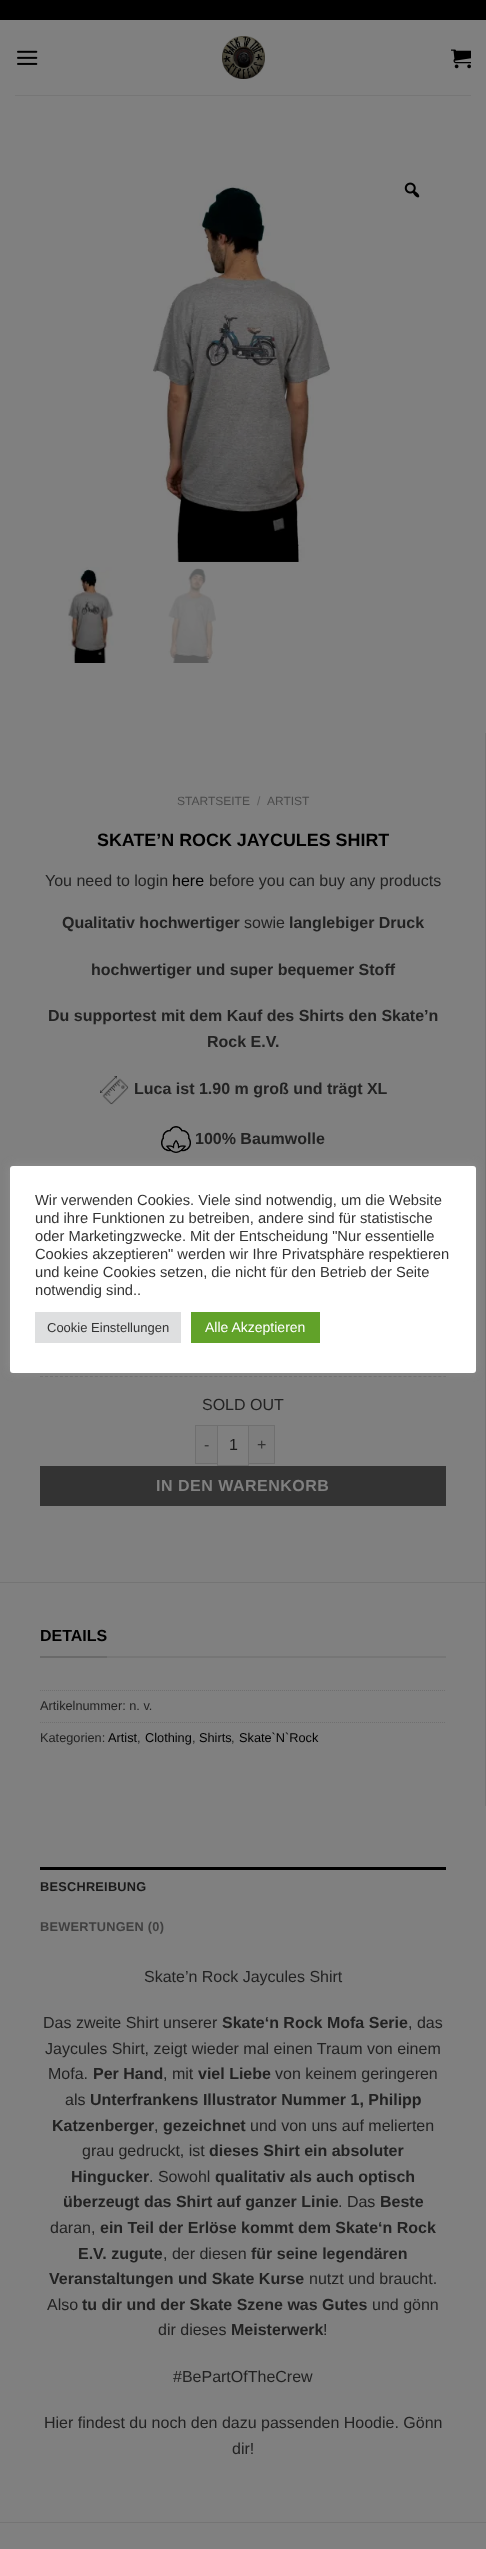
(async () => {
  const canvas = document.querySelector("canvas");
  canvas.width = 486;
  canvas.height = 2549;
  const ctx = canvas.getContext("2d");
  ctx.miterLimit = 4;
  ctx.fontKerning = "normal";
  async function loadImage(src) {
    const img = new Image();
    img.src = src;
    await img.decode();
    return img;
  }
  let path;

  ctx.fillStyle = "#808080";
  ctx.fillRect(0, 0, 486, 2549);
  ctx.fillStyle = "#000000";
  ctx.fillRect(0, 0, 486, 20);
  ctx.drawImage(await loadImage("img/1.png"), 17, 50, 21, 15);
  ctx.drawImage(await loadImage("img/2.png"), 222, 36, 43, 43);
  ctx.drawImage(await loadImage("img/3.png"), 451, 49, 20, 20);
  ctx.fillStyle = "#767676";
  ctx.fillRect(15, 95, 456, 1);
  ctx.drawImage(await loadImage("img/4.png"), 153, 185, 177, 377);
  ctx.drawImage(await loadImage("img/5.png"), 404, 182, 16, 16);
  ctx.drawImage(await loadImage("img/6.png"), 68, 567, 46, 96);
  ctx.drawImage(await loadImage("img/7.png"), 168, 568, 48, 95);
  ctx.fillStyle = "#747474";
  ctx.fillRect(485, 733, 1, 849);
  ctx.drawImage(await loadImage("img/8.png"), 100, 1076, 29, 29);
  ctx.drawImage(await loadImage("img/9.png"), 161, 1126, 30, 27);
  path = new Path2D("M40 1376.5H446");
  ctx.strokeStyle = "#6f6f6f";
  ctx.setLineDash([3, 1.98]);
  ctx.stroke(path);
  for (const [x, y, w, h, color] of [
    [196, 1426, 21, 37, "#7d7d7d"],
    [195, 1425, 22, 1, "#6f6f6f"],
    [195, 1463, 22, 1, "#6f6f6f"],
    [195, 1425, 1, 39, "#6f6f6f"],
  ]) {
    ctx.fillStyle = color;
    ctx.fillRect(x, y, w, h);
  }
  ctx.setLineDash([]);
  ctx.strokeRect(217.5, 1425.5, 31, 40);
  for (const [x, y, w, h, color] of [
    [249, 1426, 25, 37, "#7d7d7d"],
    [249, 1425, 26, 1, "#6f6f6f"],
    [274, 1425, 1, 39, "#6f6f6f"],
    [249, 1463, 26, 1, "#6f6f6f"],
    [40, 1466, 406, 40, "#333333"],
    [0, 1582, 486, 1, "#747474"],
    [107, 1656, 339, 2, "#767676"],
    [40, 1656, 67, 2, "#6a6a6a"],
    [485, 1583, 1, 223, "#747474"],
  ]) {
    ctx.fillStyle = color;
    ctx.fillRect(x, y, w, h);
  }
  path = new Path2D("M40 1690.5H446");
  ctx.setLineDash([1, 1]);
  ctx.stroke(path);
  path = new Path2D("M40 1722.5H446");
  ctx.stroke(path);
  ctx.fillStyle = "#000000";
  ctx.fillRect(40, 1867, 406, 3);
  ctx.fillStyle = "#747474";
  ctx.fillRect(0, 2522, 486, 1);
  ctx.fillStyle = "rgba(172, 171, 171, 0.3)";
  ctx.filter = "blur(5px)";
  ctx.beginPath();
  ctx.roundRect(10, 1165, 466, 207, 3);
  ctx.fill();
  ctx.filter = "none";
  ctx.fillStyle = "#ffffff";
  ctx.beginPath();
  ctx.roundRect(10, 1166, 466, 207, 3);
  ctx.fill();
  ctx.fillStyle = "#dedfe0";
  ctx.fillRect(35, 1312, 146, 31);
  ctx.fillStyle = "#61a229";
  ctx.fillRect(191, 1312, 129, 31);
  ctx.font = "12px Liberation Sans";
  ctx.fillStyle = "#4a4a4a";
  ctx.fillText("STARTSEITE", 177, 805);
  ctx.fillStyle = "#595959";
  ctx.fillText("/", 257, 805);
  ctx.fillStyle = "#4a4a4a";
  ctx.fillText("ARTIST", 267, 805);
  ctx.font = "bold 17.9px Liberation Sans";
  ctx.fillStyle = "#000000";
  ctx.fillText("SKATE’N ROCK JAYCULES SHIRT", 97, 846);
  ctx.font = "16px Liberation Sans";
  ctx.fillStyle = "#222222";
  ctx.fillText("You need to login", 45, 886);
  ctx.fillStyle = "#000000";
  ctx.fillText("here", 172, 886);
  ctx.fillStyle = "#222222";
  ctx.fillText("before you can buy any products", 209, 886);
  ctx.font = "bold 16px Liberation Sans";
  ctx.fillText("Qualitativ hochwertiger", 62, 928);
  ctx.font = "16px Liberation Sans";
  ctx.fillText("sowie", 244, 928);
  ctx.font = "bold 16px Liberation Sans";
  for (const [text, x, y] of [
    ["langlebiger Druck", 289, 928],
    ["hochwertiger und super bequemer Stoff", 91, 975],
    ["Du supportest mit dem Kauf des Shirts den Skate’n", 48, 1021],
    ["Rock E.V.", 207, 1047],
    ["Luca ist 1.90 m groß und trägt XL", 134, 1094],
    ["100% Baumwolle", 195, 1144],
  ]) {
    ctx.fillText(text, x, y);
  }
  ctx.font = "16px Liberation Sans";
  ctx.fillText("SOLD OUT", 202, 1410);
  ctx.fillStyle = "#333333";
  ctx.fillText("-", 204, 1450);
  ctx.fillStyle = "#1a1a1a";
  ctx.fillText("1", 229, 1450);
  ctx.fillStyle = "#333333";
  ctx.fillText("+", 257, 1450);
  ctx.letterSpacing = "0.5px";
  ctx.font = "bold 16px Liberation Sans";
  ctx.fillStyle = "#808080";
  ctx.fillText("IN DEN WARENKORB", 156, 1491);
  ctx.letterSpacing = "0px";
  ctx.fillStyle = "#000000";
  ctx.fillText("DETAILS", 40, 1641);
  ctx.font = "12.75px Liberation Sans";
  ctx.fillStyle = "#222222";
  ctx.fillText("Artikelnummer: n. v.", 40, 1710);
  ctx.fillText("Kategorien:", 40, 1742);
  ctx.fillStyle = "#000000";
  ctx.fillText("Artist", 108, 1742);
  ctx.fillStyle = "#222222";
  ctx.fillText(",", 137, 1742);
  ctx.fillStyle = "#000000";
  ctx.fillText("Clothing", 145, 1742);
  ctx.fillStyle = "#222222";
  ctx.fillText(",", 192, 1742);
  ctx.fillStyle = "#000000";
  ctx.fillText("Shirts", 199, 1742);
  ctx.fillStyle = "#222222";
  ctx.fillText(",", 231, 1742);
  ctx.fillStyle = "#000000";
  ctx.fillText("Skate`N`Rock", 239, 1742);
  ctx.letterSpacing = "0.25px";
  ctx.font = "bold 12.75px Liberation Sans";
  ctx.fillStyle = "#1a1a1a";
  ctx.fillText("BESCHREIBUNG", 40, 1891);
  ctx.fillStyle = "#3f3f3f";
  ctx.fillText("BEWERTUNGEN (0)", 40, 1931);
  ctx.letterSpacing = "0px";
  ctx.font = "16px Liberation Sans";
  ctx.fillStyle = "#222222";
  ctx.fillText("Skate’n Rock Jaycules Shirt", 144, 1982);
  ctx.fillText("Das zweite Shirt unserer", 43, 2028);
  ctx.font = "bold 16px Liberation Sans";
  ctx.fillText("Skate‘n Rock Mofa Serie", 222, 2028);
  ctx.font = "16px Liberation Sans";
  for (const [text, x, y] of [
    [", das", 408, 2028],
    ["Jaycules Shirt, zeigt wieder mal einen Traum von einem", 45, 2054],
    ["Mofa.", 48, 2079],
  ]) {
    ctx.fillText(text, x, y);
  }
  ctx.font = "bold 16px Liberation Sans";
  ctx.fillText("Per Hand", 93, 2079);
  ctx.font = "16px Liberation Sans";
  ctx.fillText(", mit", 163, 2079);
  ctx.font = "bold 16px Liberation Sans";
  ctx.fillText("viel Liebe", 198, 2079);
  ctx.font = "16px Liberation Sans";
  ctx.fillText("von keinem geringeren", 275, 2079);
  ctx.fillText("als", 65, 2105);
  ctx.font = "bold 16px Liberation Sans";
  ctx.fillText("Unterfrankens Illustrator Nummer 1, Philipp", 90, 2105);
  ctx.fillText("Katzenberger", 52, 2131);
  ctx.font = "16px Liberation Sans";
  ctx.fillText(",", 154, 2131);
  ctx.font = "bold 16px Liberation Sans";
  ctx.fillText("gezeichnet", 163, 2131);
  ctx.font = "16px Liberation Sans";
  ctx.fillText("und von uns auf melierten", 250, 2131);
  ctx.fillText("grau gedruckt, ist", 82, 2156);
  ctx.font = "bold 16px Liberation Sans";
  ctx.fillText("dieses Shirt ein absoluter", 209, 2156);
  ctx.fillText("Hingucker", 71, 2182);
  ctx.font = "16px Liberation Sans";
  ctx.fillText(". Sowohl", 149, 2182);
  ctx.font = "bold 16px Liberation Sans";
  ctx.fillText("qualitativ als auch optisch", 215, 2182);
  ctx.fillText("überzeugt das Shirt auf ganzer Linie", 63, 2207);
  ctx.font = "16px Liberation Sans";
  ctx.fillText(". Das", 338, 2207);
  ctx.font = "bold 16px Liberation Sans";
  ctx.fillText("Beste", 380, 2207);
  ctx.font = "16px Liberation Sans";
  ctx.fillText("daran,", 50, 2233);
  ctx.font = "bold 16px Liberation Sans";
  ctx.fillText("ein Teil der Erlöse kommt dem Skate‘n Rock", 100, 2233);
  ctx.fillText("E.V. zugute", 78, 2259);
  ctx.font = "16px Liberation Sans";
  ctx.fillText(", der diesen", 163, 2259);
  ctx.font = "bold 16px Liberation Sans";
  ctx.fillText("für seine legendären", 251, 2259);
  ctx.fillText("Veranstaltungen und Skate Kurse", 49, 2284);
  ctx.font = "16px Liberation Sans";
  ctx.fillText("nutzt und braucht.", 309, 2284);
  ctx.fillText("Also", 47, 2310);
  ctx.font = "bold 16px Liberation Sans";
  ctx.fillText("tu dir und der Skate Szene was Gutes", 82, 2310);
  ctx.font = "16px Liberation Sans";
  ctx.fillText("und gönn", 372, 2310);
  ctx.fillText("dir dieses", 158, 2335);
  ctx.font = "bold 16px Liberation Sans";
  ctx.fillText("Meisterwerk", 231, 2335);
  ctx.font = "16px Liberation Sans";
  for (const [text, x, y] of [
    ["!", 323, 2335],
    ["#BePartOfTheCrew", 173, 2382],
    ["Hier findest du noch den dazu passenden Hoodie. Gönn", 44, 2428],
    ["dir!", 232, 2454],
  ]) {
    ctx.fillText(text, x, y);
  }
  ctx.font = "14.7px Liberation Sans";
  ctx.fillStyle = "#333333";
  for (const [text, x, y] of [
    ["Wir verwenden Cookies. Viele sind notwendig, um die Website", 35, 1205],
    ["und ihre Funktionen zu betreiben, andere sind für statistische", 35, 1223],
    ["oder Marketingzwecke. Mit der Entscheidung \"Nur essentielle", 35, 1241],
    ["Cookies akzeptieren\" werden wir Ihre Privatsphäre respektieren", 35, 1259],
    ["und keine Cookies setzen, die nicht für den Betrieb der Seite", 35, 1277],
    ["notwendig sind..", 35, 1295],
  ]) {
    ctx.fillText(text, x, y);
  }
  ctx.font = "13px Liberation Sans";
  ctx.fillText("Cookie Einstellungen", 47, 1332);
  ctx.font = "14px Liberation Sans";
  ctx.fillStyle = "#ffffff";
  ctx.fillText("Alle Akzeptieren", 205, 1332);
})();
